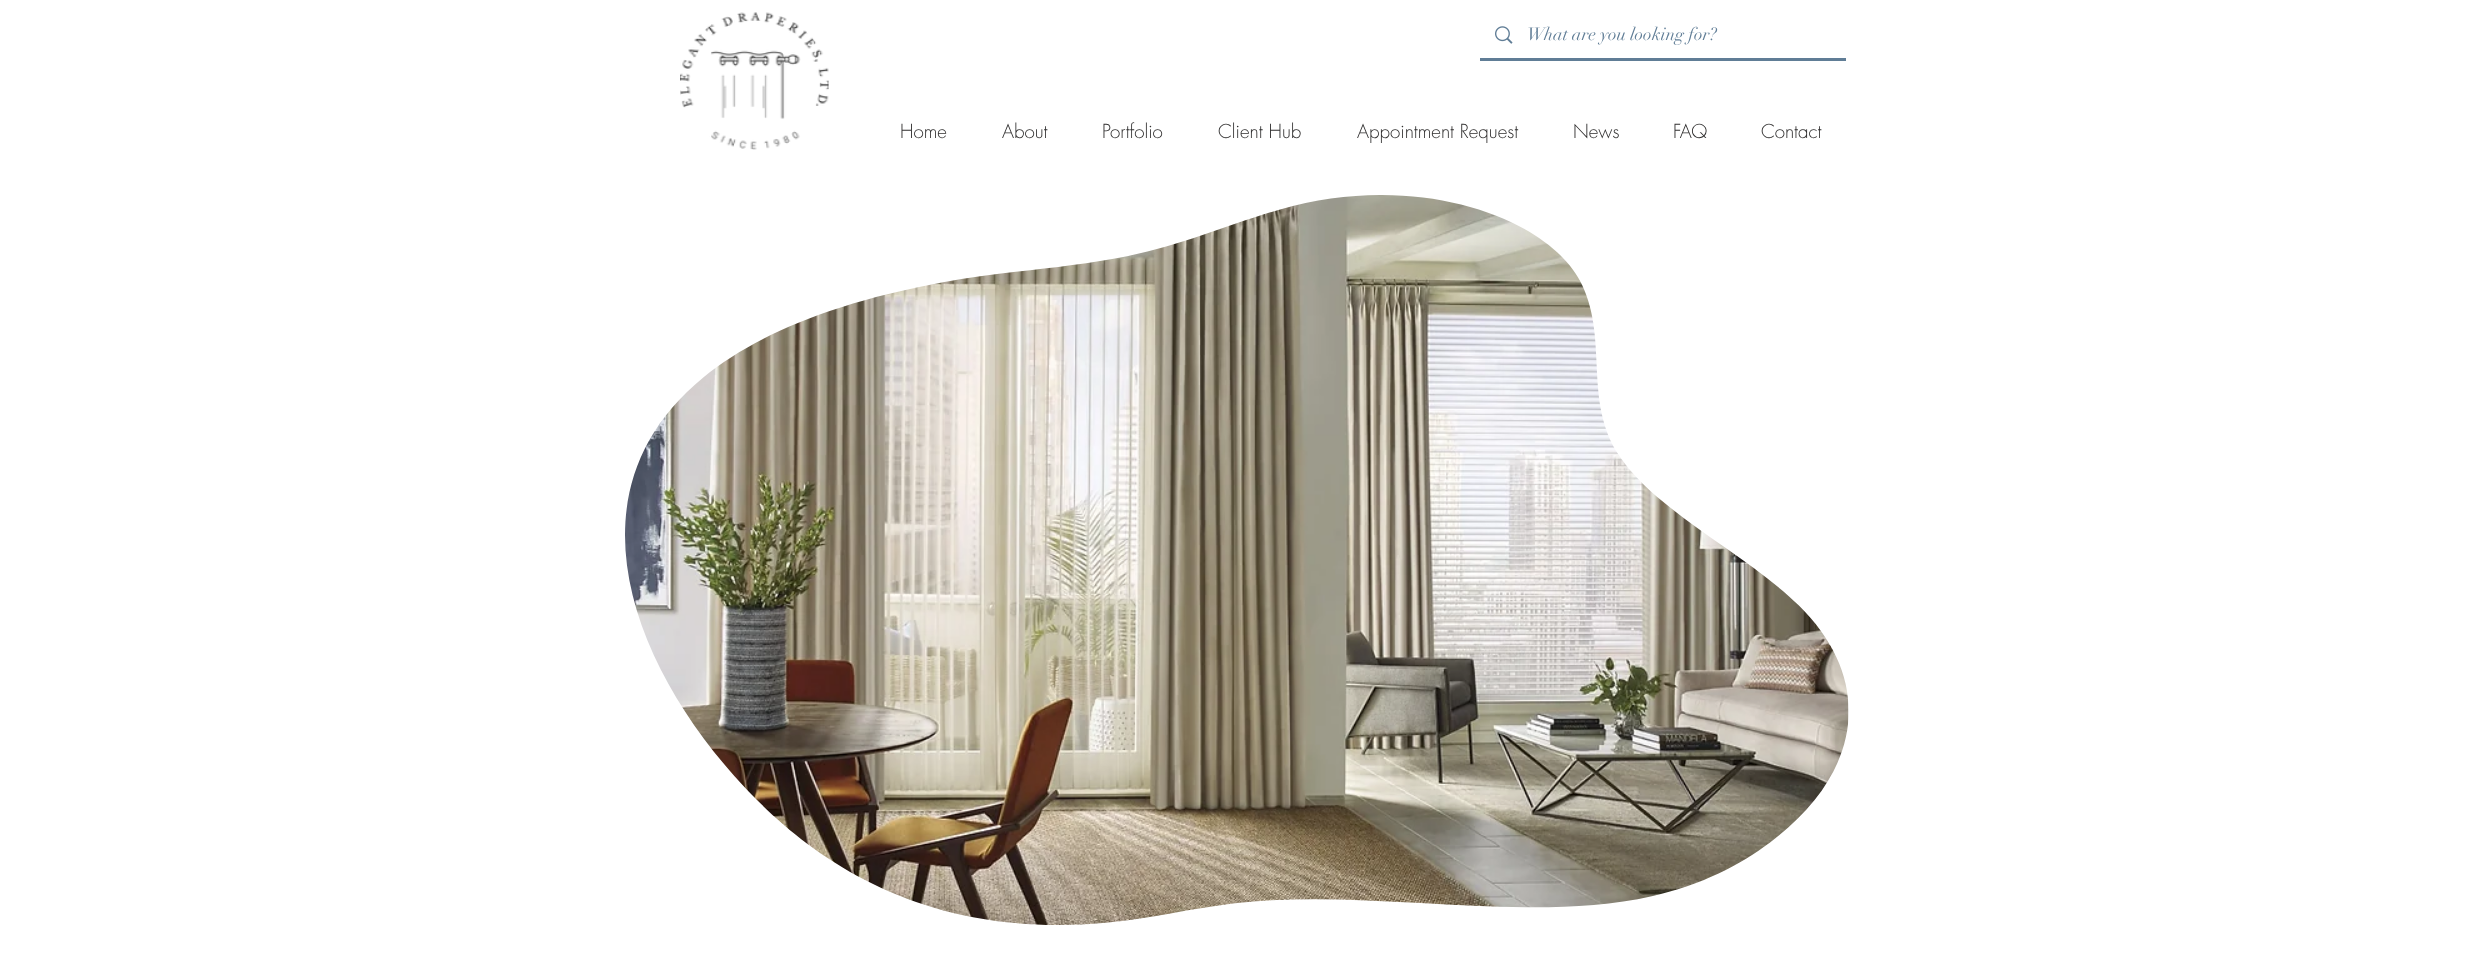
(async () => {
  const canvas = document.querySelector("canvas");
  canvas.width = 2471;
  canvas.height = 971;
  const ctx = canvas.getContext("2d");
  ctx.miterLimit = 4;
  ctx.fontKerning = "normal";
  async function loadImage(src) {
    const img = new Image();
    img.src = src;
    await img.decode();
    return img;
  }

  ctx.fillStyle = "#ffffff";
  ctx.fillRect(0, 0, 2471, 971);
  ctx.drawImage(await loadImage("img/1.png"), 680, 12, 149, 138);
  ctx.fillStyle = "#607d96";
  ctx.fillRect(1480, 58, 366, 3);
  ctx.drawImage(await loadImage("img/2.png"), 1495, 26, 18, 18);
  ctx.drawImage(await loadImage("img/3.png"), 625, 195, 1224, 730);
  ctx.font = "17.5px didot";
  ctx.fillText("What are you looking for?", 1527, 40);
  ctx.font = "300 18.75px futura";
  ctx.fillStyle = "#2f2e2e";
  for (const [text, x, y] of [
    ["Home", 900, 138],
    ["About", 1002, 138],
    ["Portfolio", 1102, 138],
    ["Client Hub", 1218, 138],
    ["Appointment Request", 1357, 138],
    ["News", 1573, 138],
    ["FAQ", 1673, 138],
    ["Contact", 1761, 138],
  ]) {
    ctx.fillText(text, x, y);
  }
})();
